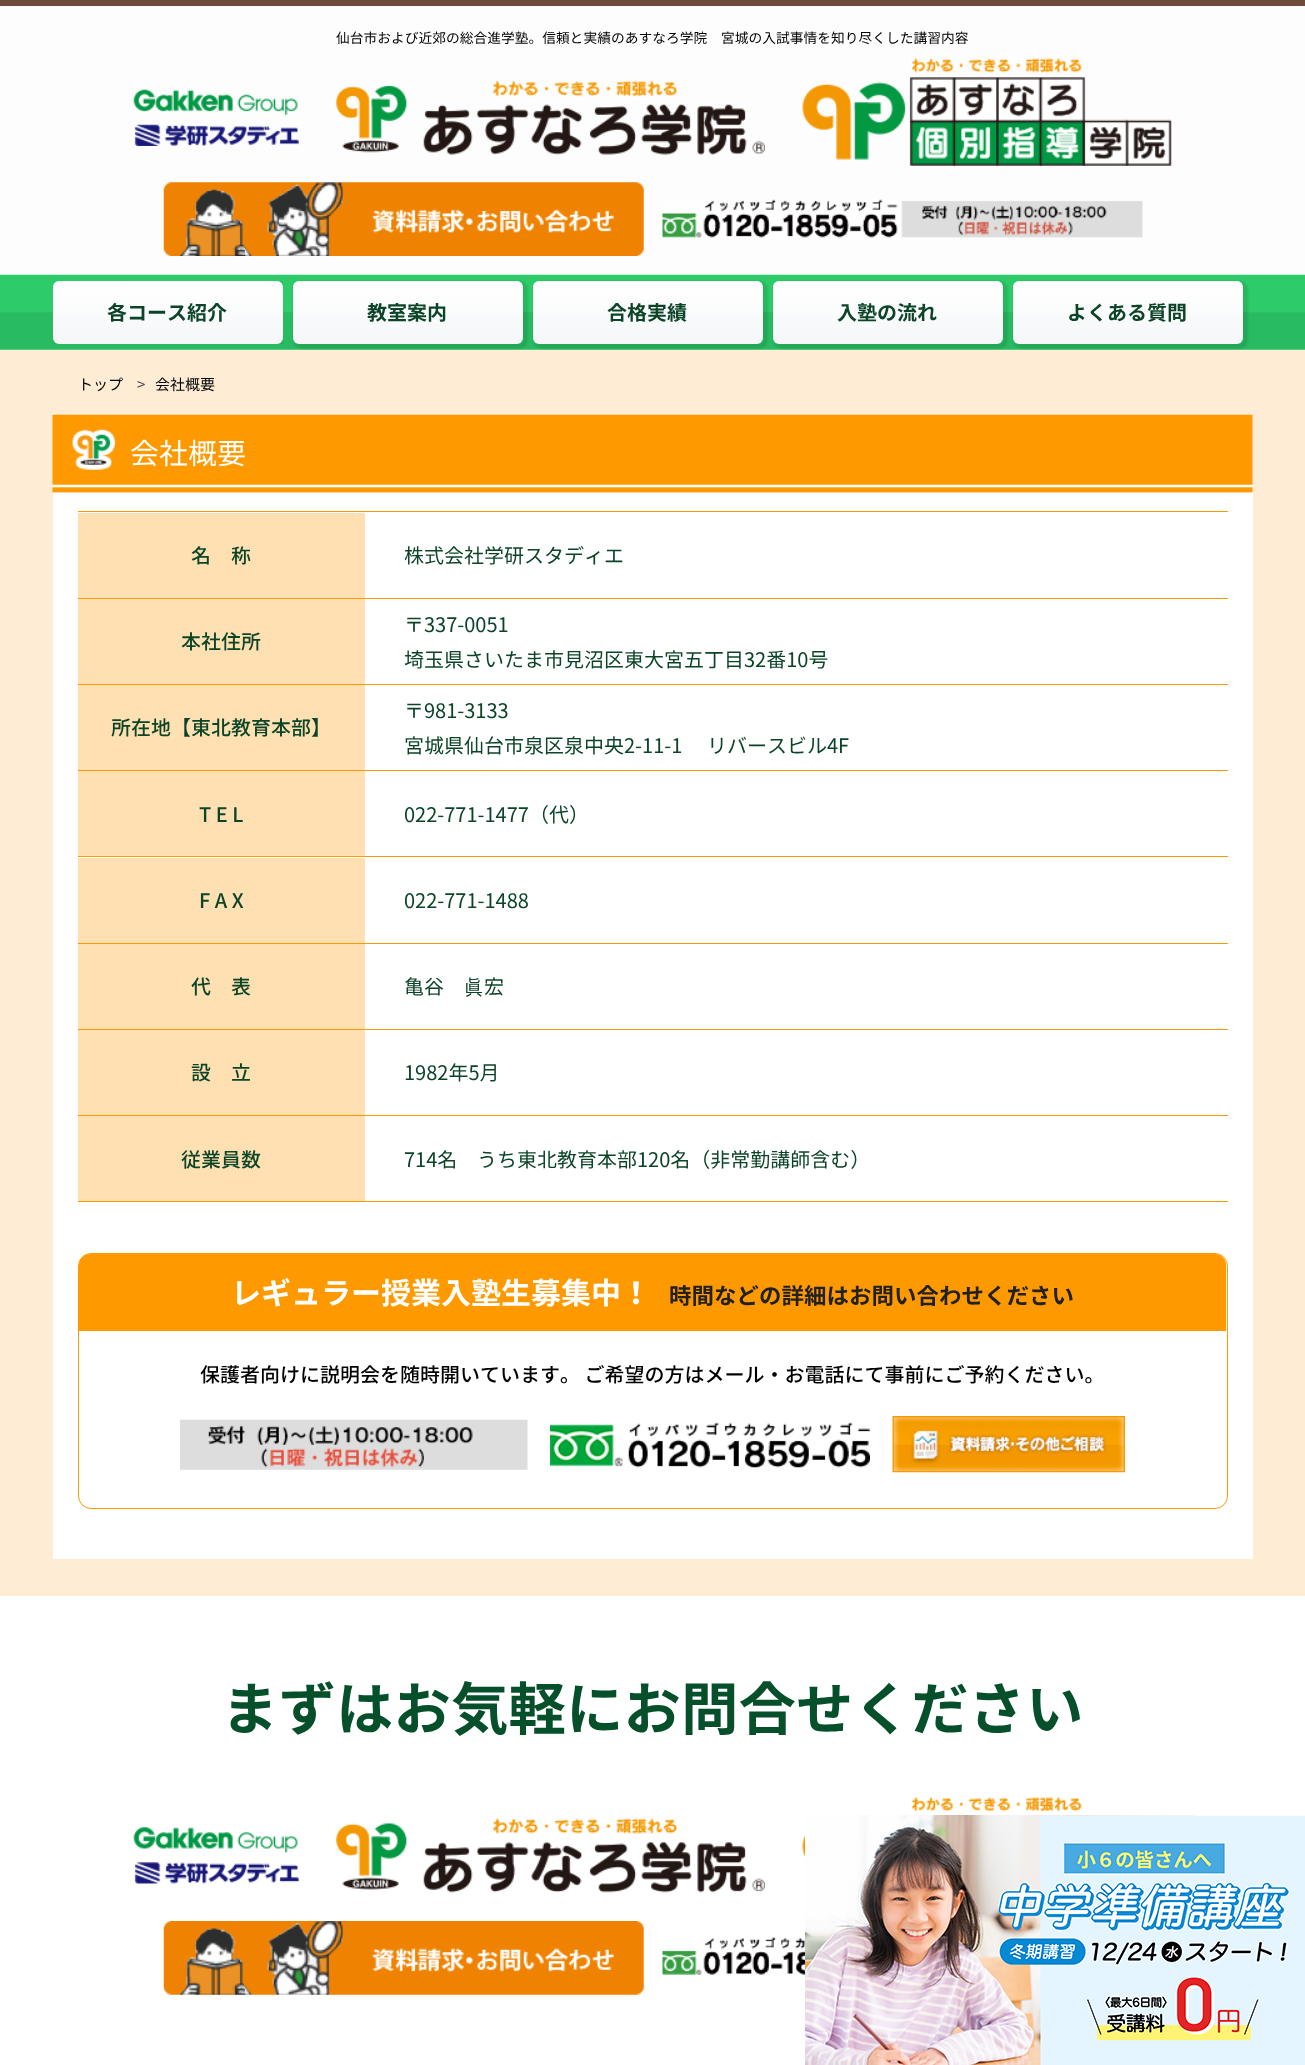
(async () => {
  const canvas = document.querySelector("canvas");
  canvas.width = 1305;
  canvas.height = 2065;
  const ctx = canvas.getContext("2d");
  ctx.miterLimit = 4;
  ctx.fontKerning = "normal";
  async function loadImage(src) {
    const img = new Image();
    img.src = src;
    await img.decode();
    return img;
  }
  let gradient;

  ctx.fillStyle = "#feedd4";
  ctx.fillRect(0, 0, 1305, 2065);
  ctx.fillStyle = "#fdfdfd";
  ctx.fillRect(0, 6, 1305, 344);
  ctx.fillStyle = "#6f4b3e";
  ctx.fillRect(0, 0, 1305, 6);
  ctx.drawImage(await loadImage("img/1.png"), 133, 89, 166, 57);
  ctx.drawImage(await loadImage("img/2.png"), 336, 81, 429, 74);
  ctx.drawImage(await loadImage("img/3.png"), 802, 58, 370, 108);
  ctx.drawImage(await loadImage("img/4.png"), 163, 182, 481, 74);
  ctx.drawImage(await loadImage("img/5.png"), 662, 199, 481, 39);
  ctx.drawImage(await loadImage("img/6.png"), 0, 274, 1305, 76);
  ctx.save();
  ctx.beginPath();
  ctx.rect(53, 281, 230, 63);
  ctx.clip();
  ctx.fillStyle = "rgba(0, 0, 0, 0.1)";
  ctx.filter = "blur(1px)";
  ctx.beginPath();
  ctx.roundRect(53, 281, 235, 68, 9);
  ctx.fill();
  ctx.filter = "none";
  ctx.restore();
  gradient = ctx.createLinearGradient(168, 344, 168, 281);
  gradient.addColorStop(0, "#f5f7f8");
  gradient.addColorStop(1, "#ffffff");
  ctx.fillStyle = gradient;
  ctx.beginPath();
  ctx.roundRect(53, 281, 230, 63, 6);
  ctx.fill();
  ctx.fillStyle = "rgba(0, 0, 0, 0.1)";
  ctx.filter = "blur(1px)";
  ctx.beginPath();
  ctx.roundRect(293, 281, 235, 68, 9);
  ctx.fill();
  ctx.filter = "none";
  gradient = ctx.createLinearGradient(408, 344, 408, 281);
  gradient.addColorStop(0, "#f5f7f8");
  gradient.addColorStop(1, "#ffffff");
  ctx.fillStyle = gradient;
  ctx.beginPath();
  ctx.roundRect(293, 281, 230, 63, 6);
  ctx.fill();
  ctx.fillStyle = "rgba(0, 0, 0, 0.1)";
  ctx.filter = "blur(1px)";
  ctx.beginPath();
  ctx.roundRect(533, 281, 235, 68, 9);
  ctx.fill();
  ctx.filter = "none";
  gradient = ctx.createLinearGradient(648, 344, 648, 281);
  gradient.addColorStop(0, "#f5f7f8");
  gradient.addColorStop(1, "#ffffff");
  ctx.fillStyle = gradient;
  ctx.beginPath();
  ctx.roundRect(533, 281, 230, 63, 6);
  ctx.fill();
  ctx.fillStyle = "rgba(0, 0, 0, 0.1)";
  ctx.filter = "blur(1px)";
  ctx.beginPath();
  ctx.roundRect(773, 281, 235, 68, 9);
  ctx.fill();
  ctx.filter = "none";
  gradient = ctx.createLinearGradient(888, 344, 888, 281);
  gradient.addColorStop(0, "#f5f7f8");
  gradient.addColorStop(1, "#ffffff");
  ctx.fillStyle = gradient;
  ctx.beginPath();
  ctx.roundRect(773, 281, 230, 63, 6);
  ctx.fill();
  ctx.fillStyle = "rgba(0, 0, 0, 0.1)";
  ctx.filter = "blur(1px)";
  ctx.beginPath();
  ctx.roundRect(1013, 281, 235, 68, 9);
  ctx.fill();
  ctx.filter = "none";
  gradient = ctx.createLinearGradient(1128, 344, 1128, 281);
  gradient.addColorStop(0, "#f5f7f8");
  gradient.addColorStop(1, "#ffffff");
  ctx.fillStyle = gradient;
  ctx.beginPath();
  ctx.roundRect(1013, 281, 230, 63, 6);
  ctx.fill();
  ctx.drawImage(await loadImage("img/7.png"), 52, 414, 1201, 79);
  for (const [x, y, w, h, color] of [
    [53, 493, 1200, 1066, "#ffffff"],
    [78, 511, 1150, 1, "#ff9900"],
    [78, 598, 1150, 1, "#ff9900"],
    [78, 513, 287, 85, "#ffe0b2"],
    [78, 684, 1150, 1, "#ff9900"],
    [78, 599, 287, 85, "#ffe0b2"],
    [78, 770, 1150, 1, "#ff9900"],
    [78, 685, 287, 85, "#ffe0b2"],
    [78, 856, 1150, 1, "#ff9900"],
    [78, 771, 287, 85, "#ffe0b2"],
    [78, 943, 1150, 1, "#ff9900"],
    [78, 858, 287, 85, "#ffe0b2"],
    [78, 1029, 1150, 1, "#ff9900"],
    [78, 944, 287, 85, "#ffe0b2"],
    [78, 1115, 1150, 1, "#ff9900"],
    [78, 1030, 287, 85, "#ffe0b2"],
    [78, 1201, 1150, 1, "#ff9900"],
    [78, 1116, 287, 85, "#ffe0b2"],
  ]) {
    ctx.fillStyle = color;
    ctx.fillRect(x, y, w, h);
  }
  ctx.beginPath();
  ctx.roundRect(78.5, 1253.5, 1149, 255, 12.5);
  ctx.strokeStyle = "#ff9900";
  ctx.stroke();
  ctx.fillStyle = "#ff9900";
  ctx.beginPath();
  ctx.roundRect(79, 1254, 1147, 77, [11, 11, 0, 0]);
  ctx.fill();
  ctx.drawImage(await loadImage("img/8.png"), 180, 1419, 348, 51);
  ctx.drawImage(await loadImage("img/9.png"), 550, 1422, 320, 46);
  ctx.drawImage(await loadImage("img/10.png"), 892, 1416, 233, 57);
  ctx.fillStyle = "#ffffff";
  ctx.fillRect(0, 1596, 1305, 469);
  ctx.drawImage(await loadImage("img/11.png"), 133, 1827, 166, 57);
  ctx.drawImage(await loadImage("img/12.png"), 336, 1818, 429, 75);
  ctx.drawImage(await loadImage("img/13.png"), 802, 1797, 280, 61);
  ctx.drawImage(await loadImage("img/14.png"), 163, 1921, 481, 74);
  ctx.drawImage(await loadImage("img/15.png"), 662, 1937, 143, 38);
  ctx.drawImage(await loadImage("img/16.png"), 805, 1815, 500, 250);
  ctx.font = "13.75px Noto Sans CJK JP";
  ctx.fillStyle = "#000000";
  ctx.fillText("仙台市および近郊の総合進学塾。信頼と実績のあすなろ学院", 336, 43);
  ctx.fillText("宮城の入試事情を知り尽くした講習内容", 721, 43);
  ctx.font = "bold 20px Noto Sans CJK JP";
  ctx.fillStyle = "#0b4427";
  for (const [text, x, y] of [
    ["各コース紹介", 107, 320],
    ["教室案内", 367, 320],
    ["合格実績", 607, 320],
    ["入塾の流れ", 837, 320],
    ["よくある質問", 1067, 320],
  ]) {
    ctx.fillText(text, x, y);
  }
  ctx.font = "15px Noto Sans CJK JP";
  ctx.fillStyle = "#000000";
  ctx.fillText("トップ", 78, 390);
  ctx.fillStyle = "#4d4646";
  ctx.fillText(">", 137, 390);
  ctx.fillStyle = "#000000";
  ctx.fillText("会社概要", 155, 390);
  ctx.font = "29px Noto Sans CJK JP";
  ctx.fillStyle = "#ffffff";
  ctx.fillText("会社概要", 130, 464);
  ctx.letterSpacing = "20px";
  ctx.font = "500 20px Noto Sans CJK JP";
  ctx.fillStyle = "#0b4427";
  ctx.fillText("名称", 191, 563);
  ctx.letterSpacing = "0px";
  ctx.font = "20px Noto Sans CJK JP";
  ctx.fillText("株式会社学研スタディエ", 404, 563);
  ctx.font = "500 20px Noto Sans CJK JP";
  ctx.fillText("本社住所", 181, 649);
  ctx.font = "20px Noto Sans CJK JP";
  ctx.fillText("〒337-0051", 404, 632);
  ctx.fillText("埼玉県さいたま市見沼区東大宮五丁目32番10号", 404, 667);
  ctx.font = "500 20px Noto Sans CJK JP";
  ctx.fillText("所在地【東北教育本部】", 111, 735);
  ctx.font = "20px Noto Sans CJK JP";
  for (const [text, x, y] of [
    ["〒981-3133", 404, 718],
    ["宮城県仙台市泉区泉中央2-11-1", 404, 753],
    ["リバースビル4F", 707, 753],
  ]) {
    ctx.fillText(text, x, y);
  }
  ctx.font = "500 20px Noto Sans CJK JP";
  ctx.fillText("T E L", 199, 822);
  ctx.font = "20px Noto Sans CJK JP";
  ctx.fillText("022-771-1477（代）", 404, 822);
  ctx.font = "500 20px Noto Sans CJK JP";
  ctx.fillText("F A X", 199, 908);
  ctx.font = "20px Noto Sans CJK JP";
  ctx.fillText("022-771-1488", 404, 908);
  ctx.letterSpacing = "20px";
  ctx.font = "500 20px Noto Sans CJK JP";
  ctx.fillText("代表", 191, 994);
  ctx.letterSpacing = "0px";
  ctx.font = "20px Noto Sans CJK JP";
  ctx.fillText("亀谷", 404, 994);
  ctx.font = "500 20px WenQuanYi Zen Hei";
  ctx.fillText("眞", 464, 994);
  ctx.font = "20px Noto Sans CJK JP";
  ctx.fillText("宏", 484, 994);
  ctx.letterSpacing = "20px";
  ctx.font = "500 20px Noto Sans CJK JP";
  ctx.fillText("設立", 191, 1080);
  ctx.letterSpacing = "0px";
  ctx.font = "20px Noto Sans CJK JP";
  ctx.fillText("1982年5月", 404, 1080);
  ctx.font = "500 20px Noto Sans CJK JP";
  ctx.fillText("従業員数", 181, 1167);
  ctx.font = "20px Noto Sans CJK JP";
  ctx.fillText("714名", 404, 1167);
  ctx.fillText("うち東北教育本部120名（非常勤講師含む）", 477, 1167);
  ctx.font = "bold 30px Noto Sans CJK JP";
  ctx.fillStyle = "#ffffff";
  ctx.fillText("レギュラー授業入塾生募集中！", 231, 1304);
  ctx.font = "bold 22.5px Noto Sans CJK JP";
  ctx.fillStyle = "#212121";
  ctx.fillText("時間などの詳細はお問い合わせください", 669, 1304);
  ctx.font = "500 20px Noto Sans CJK JP";
  ctx.fillStyle = "#000000";
  ctx.fillText("保護者向けに説明会を随時開いています。 ご希望の方はメール・お電話にて事前にご予約ください。", 200, 1382);
  ctx.font = "bold 57.5px Noto Sans CJK JP";
  ctx.fillStyle = "#05502b";
  ctx.fillText("まずはお気軽にお問合せください", 221, 1730);
})();
